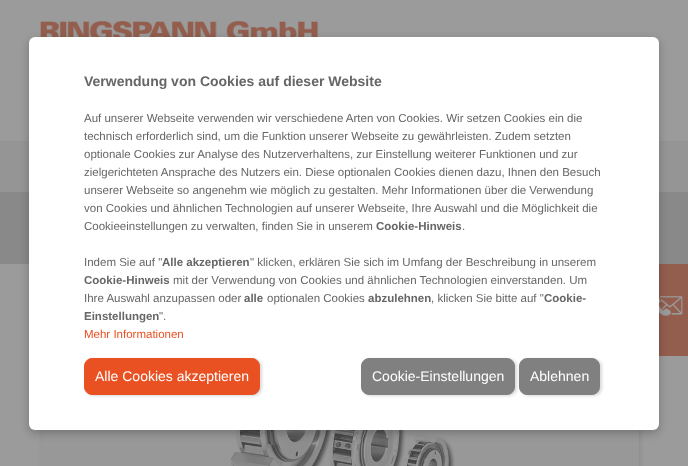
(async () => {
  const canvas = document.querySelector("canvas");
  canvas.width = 688;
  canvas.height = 466;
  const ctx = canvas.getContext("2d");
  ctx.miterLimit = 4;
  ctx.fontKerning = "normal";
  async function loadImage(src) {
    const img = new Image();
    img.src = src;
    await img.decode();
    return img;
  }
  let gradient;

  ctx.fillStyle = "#9b9b9b";
  ctx.fillRect(0, 0, 688, 466);
  ctx.drawImage(await loadImage("img/1.png"), 40, 21, 278, 16);
  ctx.fillStyle = "#935e4e";
  ctx.fillRect(659, 264, 29, 92);
  ctx.drawImage(await loadImage("img/2.png"), 659, 296, 24, 20);
  for (const [x, y, w, h, color] of [
    [0, 141, 688, 1, "#949494"],
    [0, 142, 688, 50, "#959595"],
    [0, 192, 688, 72, "#898989"],
  ]) {
    ctx.fillStyle = color;
    ctx.fillRect(x, y, w, h);
  }
  ctx.fillStyle = "rgba(66, 66, 66, 0.5)";
  ctx.filter = "blur(3.5px)";
  ctx.beginPath();
  ctx.roundRect(46, 337, 591, 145, 5);
  ctx.fill();
  ctx.filter = "none";
  gradient = ctx.createLinearGradient(341, 247, 341, 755);
  gradient.addColorStop(0, "#9b9b9b");
  gradient.addColorStop(0.79, "#959595");
  gradient.addColorStop(1, "#898989");
  ctx.fillStyle = gradient;
  ctx.fillRect(42, 430, 597, 36);
  ctx.drawImage(await loadImage("img/3.png"), 230, 430, 225, 36);
  ctx.fillStyle = "rgba(0, 0, 0, 0.24)";
  ctx.filter = "blur(4px)";
  ctx.beginPath();
  ctx.roundRect(29, 40, 630, 393, 6);
  ctx.fill();
  ctx.filter = "none";
  ctx.fillStyle = "#ffffff";
  ctx.beginPath();
  ctx.roundRect(29, 37, 630, 393, 6);
  ctx.fill();
  ctx.fillStyle = "rgba(0, 0, 0, 0.15)";
  ctx.filter = "blur(1.5px)";
  ctx.beginPath();
  ctx.roundRect(86, 359, 176, 37, 8);
  ctx.fill();
  ctx.filter = "none";
  ctx.fillStyle = "#e95123";
  ctx.beginPath();
  ctx.roundRect(84.5, 358.5, 175, 36, 7.5);
  ctx.fill();
  ctx.strokeStyle = "#e95123";
  ctx.stroke();
  ctx.fillStyle = "rgba(0, 0, 0, 0.15)";
  ctx.filter = "blur(1.5px)";
  ctx.beginPath();
  ctx.roundRect(521, 359, 81, 37, 8);
  ctx.fill();
  ctx.filter = "none";
  ctx.fillStyle = "#808080";
  ctx.beginPath();
  ctx.roundRect(519.5, 358.5, 80, 36, 7.5);
  ctx.fill();
  ctx.strokeStyle = "#808080";
  ctx.stroke();
  ctx.fillStyle = "rgba(0, 0, 0, 0.15)";
  ctx.filter = "blur(1.5px)";
  ctx.beginPath();
  ctx.roundRect(363, 359, 154, 37, 8);
  ctx.fill();
  ctx.filter = "none";
  ctx.fillStyle = "#808080";
  ctx.beginPath();
  ctx.roundRect(361.5, 358.5, 153, 36, 7.5);
  ctx.fill();
  ctx.stroke();
  ctx.font = "bold 14px Liberation Sans";
  ctx.fillStyle = "#666666";
  ctx.fillText("Verwendung von Cookies auf dieser Website", 84, 86);
  ctx.font = "11.5px Liberation Sans";
  for (const [text, x, y] of [
    ["Auf unserer Webseite verwenden wir verschiedene Arten von Cookies. Wir setzen Cookies ein die", 84, 122],
    ["technisch erforderlich sind, um die Funktion unserer Webseite zu gewährleisten. Zudem setzten", 84, 140],
    ["optionale Cookies zur Analyse des Nutzerverhaltens, zur Einstellung weiterer Funktionen und zur", 84, 158],
    ["zielgerichteten Ansprache des Nutzers ein. Diese optionalen Cookies dienen dazu, Ihnen den Besuch", 84, 176],
    ["unserer Webseite so angenehm wie möglich zu gestalten. Mehr Informationen über die Verwendung", 84, 194],
    ["von Cookies und ähnlichen Technologien auf unserer Webseite, Ihre Auswahl und die Möglichkeit die", 84, 212],
    ["Cookieeinstellungen zu verwalten, finden Sie in unserem", 84, 230],
  ]) {
    ctx.fillText(text, x, y);
  }
  ctx.font = "bold 11.5px Liberation Sans";
  ctx.fillText("Cookie-Hinweis", 376, 230);
  ctx.font = "11.5px Liberation Sans";
  ctx.fillText(".", 462, 230);
  ctx.fillText("Indem Sie auf \"", 84, 266);
  ctx.font = "bold 11.5px Liberation Sans";
  ctx.fillText("Alle akzeptieren", 162, 266);
  ctx.font = "11.5px Liberation Sans";
  ctx.fillText("\" klicken, erklären Sie sich im Umfang der Beschreibung in unserem", 250, 266);
  ctx.font = "bold 11.5px Liberation Sans";
  ctx.fillText("Cookie-Hinweis", 84, 284);
  ctx.font = "11.5px Liberation Sans";
  ctx.fillText("mit der Verwendung von Cookies und ähnlichen Technologien einverstanden. Um", 173, 284);
  ctx.fillText("Ihre Auswahl anzupassen oder", 84, 302);
  ctx.font = "bold 11.5px Liberation Sans";
  ctx.fillText("alle", 244, 302);
  ctx.font = "11.5px Liberation Sans";
  ctx.fillText("optionalen Cookies", 267, 302);
  ctx.font = "bold 11.5px Liberation Sans";
  ctx.fillText("abzulehnen", 368, 302);
  ctx.font = "11.5px Liberation Sans";
  ctx.fillText(", klicken Sie bitte auf \"", 431, 302);
  ctx.font = "bold 11.5px Liberation Sans";
  ctx.fillText("Cookie-", 544, 302);
  ctx.fillText("Einstellungen", 84, 320);
  ctx.font = "11.5px Liberation Sans";
  ctx.fillText("\".", 159, 320);
  ctx.fillStyle = "#e95123";
  ctx.fillText("Mehr Informationen", 84, 338);
  ctx.font = "14px Liberation Sans";
  ctx.fillStyle = "#ffffff";
  for (const [text, x, y] of [
    ["Alle Cookies akzeptieren", 95, 381],
    ["Cookie-Einstellungen", 372, 381],
    ["Ablehnen", 530, 381],
  ]) {
    ctx.fillText(text, x, y);
  }
})();
